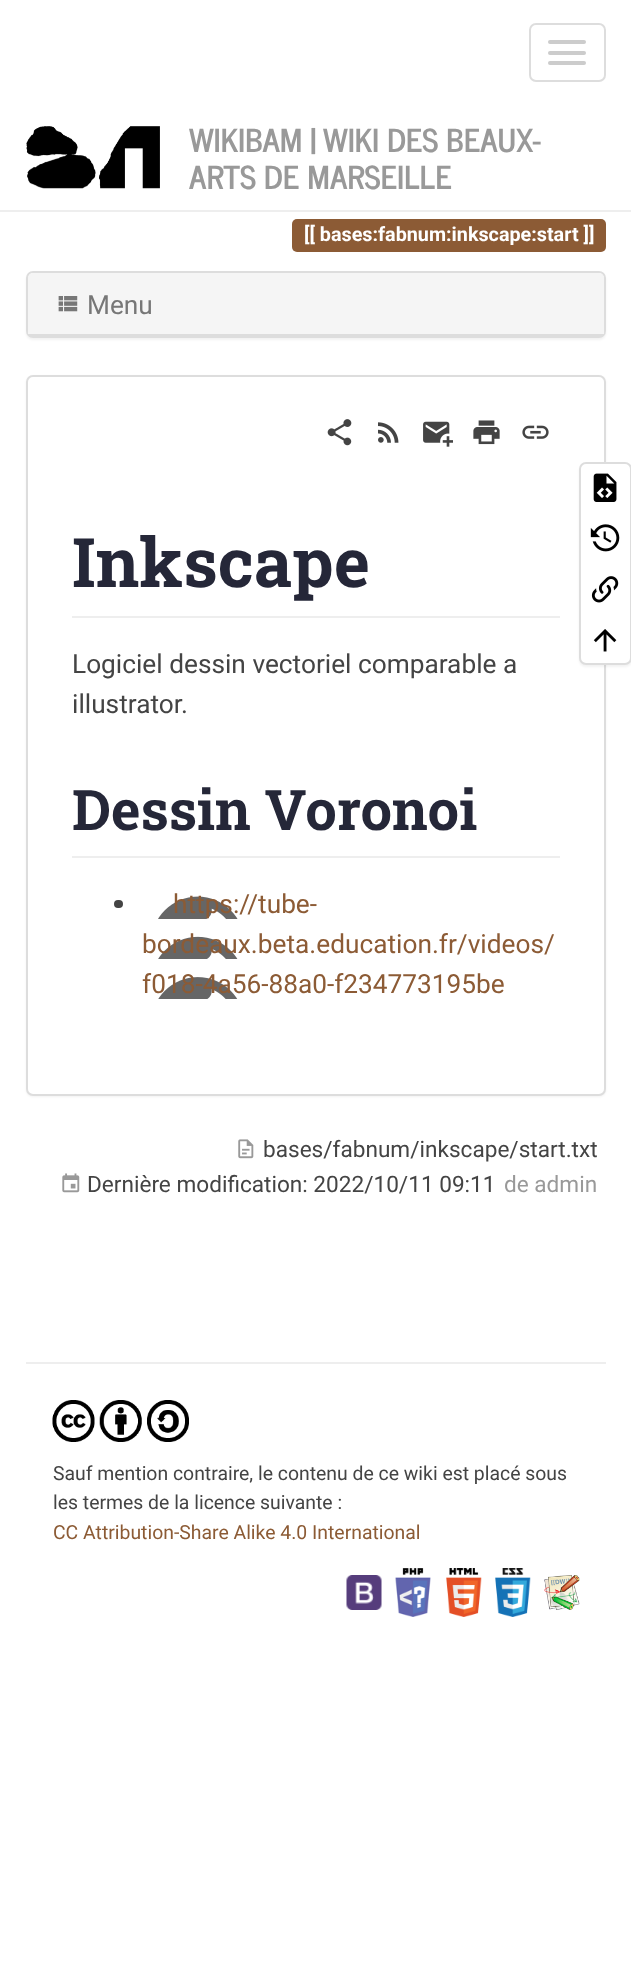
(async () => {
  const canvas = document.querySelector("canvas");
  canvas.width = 631;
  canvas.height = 1966;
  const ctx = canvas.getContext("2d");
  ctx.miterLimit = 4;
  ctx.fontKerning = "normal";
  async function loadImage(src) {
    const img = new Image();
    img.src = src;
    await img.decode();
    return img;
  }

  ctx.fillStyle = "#ffffff";
  ctx.fillRect(0, 0, 631, 1966);
  ctx.fillStyle = "#eeeeee";
  ctx.fillRect(0, 210, 631, 2);
  ctx.beginPath();
  ctx.roundRect(530, 24, 75, 57, 6);
  ctx.strokeStyle = "#dddddd";
  ctx.lineWidth = 2;
  ctx.stroke();
  ctx.fillStyle = "#cccccc";
  ctx.beginPath();
  ctx.roundRect(548, 40, 38, 4, 2);
  ctx.fill();
  ctx.beginPath();
  ctx.roundRect(548, 51, 38, 4, 2);
  ctx.fill();
  ctx.beginPath();
  ctx.roundRect(548, 61, 38, 4, 2);
  ctx.fill();
  ctx.drawImage(await loadImage("img/1.png"), 26, 126, 134, 63);
  ctx.fillStyle = "#8c5b35";
  ctx.beginPath();
  ctx.roundRect(292, 219, 28, 33, [5, 0, 0, 5]);
  ctx.fill();
  ctx.fillRect(320, 219, 258, 33);
  ctx.beginPath();
  ctx.roundRect(578, 219, 28, 33, [0, 5, 5, 0]);
  ctx.fill();
  ctx.fillStyle = "rgba(0, 0, 0, 0.05)";
  ctx.filter = "blur(1px)";
  ctx.beginPath();
  ctx.roundRect(26, 273, 580, 67, 7);
  ctx.fill();
  ctx.filter = "none";
  ctx.beginPath();
  ctx.roundRect(27, 272, 578, 65, 6);
  ctx.stroke();
  ctx.fillStyle = "#f5f5f5";
  ctx.beginPath();
  ctx.roundRect(28, 273, 576, 63, [5, 5, 0, 0]);
  ctx.fill();
  ctx.fillStyle = "#dddddd";
  ctx.fillRect(28, 334, 576, 2);
  ctx.drawImage(await loadImage("img/2.png"), 58, 296, 20, 16);
  ctx.fillStyle = "rgba(0, 0, 0, 0.05)";
  ctx.filter = "blur(1px)";
  ctx.beginPath();
  ctx.roundRect(26, 376, 580, 721, 7);
  ctx.fill();
  ctx.filter = "none";
  ctx.fillStyle = "#ffffff";
  ctx.beginPath();
  ctx.roundRect(27, 376, 578, 719, 6);
  ctx.fill();
  ctx.stroke();
  ctx.drawImage(await loadImage("img/3.png"), 327, 419, 25, 27);
  ctx.drawImage(await loadImage("img/4.png"), 378, 422, 21, 21);
  ctx.drawImage(await loadImage("img/5.png"), 423, 421, 30, 26);
  ctx.drawImage(await loadImage("img/6.png"), 473, 420, 27, 25);
  ctx.drawImage(await loadImage("img/7.png"), 522, 425, 27, 14);
  ctx.fillStyle = "#eeeeee";
  ctx.fillRect(72, 616, 488, 2);
  ctx.fillRect(72, 856, 488, 2);
  ctx.fillStyle = "#444444";
  ctx.beginPath();
  ctx.roundRect(114, 900, 9, 8, 4);
  ctx.fill();
  ctx.drawImage(await loadImage("img/8.png"), 158, 896, 80, 103);
  ctx.fillStyle = "rgba(0, 0, 0, 0.05)";
  ctx.filter = "blur(1px)";
  ctx.beginPath();
  ctx.roundRect(579, 464, 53, 203, 7);
  ctx.fill();
  ctx.filter = "none";
  ctx.fillStyle = "#ffffff";
  ctx.beginPath();
  ctx.roundRect(580, 463, 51, 201, 6);
  ctx.fill();
  ctx.stroke();
  ctx.drawImage(await loadImage("img/9.png"), 593, 473, 24, 29);
  ctx.drawImage(await loadImage("img/10.png"), 590, 524, 30, 28);
  ctx.drawImage(await loadImage("img/11.png"), 591, 576, 28, 27);
  ctx.drawImage(await loadImage("img/12.png"), 593, 629, 24, 23);
  ctx.drawImage(await loadImage("img/13.png"), 238, 1139, 16, 20);
  ctx.drawImage(await loadImage("img/14.png"), 62, 1173, 18, 20);
  ctx.fillStyle = "#eeeeee";
  ctx.fillRect(26, 1362, 580, 2);
  ctx.drawImage(await loadImage("img/15.png"), 52, 1400, 43, 42);
  ctx.drawImage(await loadImage("img/16.png"), 99, 1400, 43, 42);
  ctx.drawImage(await loadImage("img/17.png"), 147, 1400, 42, 42);
  ctx.drawImage(await loadImage("img/18.png"), 346, 1575, 36, 35);
  ctx.drawImage(await loadImage("img/19.png"), 395, 1568, 36, 49);
  ctx.drawImage(await loadImage("img/20.png"), 446, 1568, 36, 49);
  ctx.drawImage(await loadImage("img/21.png"), 495, 1568, 36, 49);
  ctx.drawImage(await loadImage("img/22.png"), 544, 1575, 36, 35);
  ctx.font = "bold 31.5px News Cycle";
  ctx.fillStyle = "#999999";
  ctx.fillText("WIKIBAM | WIKI DES BEAUX-", 189, 152);
  ctx.fillText("ARTS DE MARSEILLE", 189, 189);
  ctx.font = "bold 19.75px Roboto";
  ctx.fillStyle = "#ffffff";
  ctx.fillText("[[ bases:fabnum:inkscape:start ]]", 304, 241);
  ctx.font = "26.25px Roboto";
  ctx.fillStyle = "#777777";
  ctx.fillText("Menu", 87, 314);
  ctx.font = "bold 68.25px Roboto Slab";
  ctx.fillStyle = "#252738";
  ctx.fillText("Inkscape", 72, 587);
  ctx.font = "26.25px Roboto";
  ctx.fillStyle = "#444444";
  ctx.fillText("Logiciel dessin vectoriel comparable a", 72, 673);
  ctx.fillText("illustrator.", 72, 713);
  ctx.font = "bold 56px Roboto Slab";
  ctx.fillStyle = "#252738";
  ctx.fillText("Dessin Voronoi", 72, 830);
  ctx.font = "26.25px Roboto";
  ctx.fillStyle = "#8c5b35";
  for (const [text, x, y] of [
    ["https://tube-", 173, 913],
    ["bordeaux.beta.education.fr/videos/", 142, 953],
    ["f018-4a56-88a0-f234773195be", 142, 993],
  ]) {
    ctx.fillText(text, x, y);
  }
  ctx.font = "22.6px Roboto";
  ctx.fillStyle = "#444444";
  ctx.fillText("bases/fabnum/inkscape/start.txt", 263, 1157);
  ctx.fillText("Dernière modification: 2022/10/11 09:11", 87, 1192);
  ctx.fillStyle = "#999999";
  ctx.fillText("de admin", 504, 1192);
  ctx.font = "19.4px Roboto";
  ctx.fillStyle = "#444444";
  ctx.fillText("Sauf mention contraire, le contenu de ce wiki est placé sous", 53, 1480);
  ctx.fillText("les termes de la licence suivante :", 53, 1509);
  ctx.fillStyle = "#8c5b35";
  ctx.fillText("CC Attribution-Share Alike 4.0 International", 53, 1539);
})();
